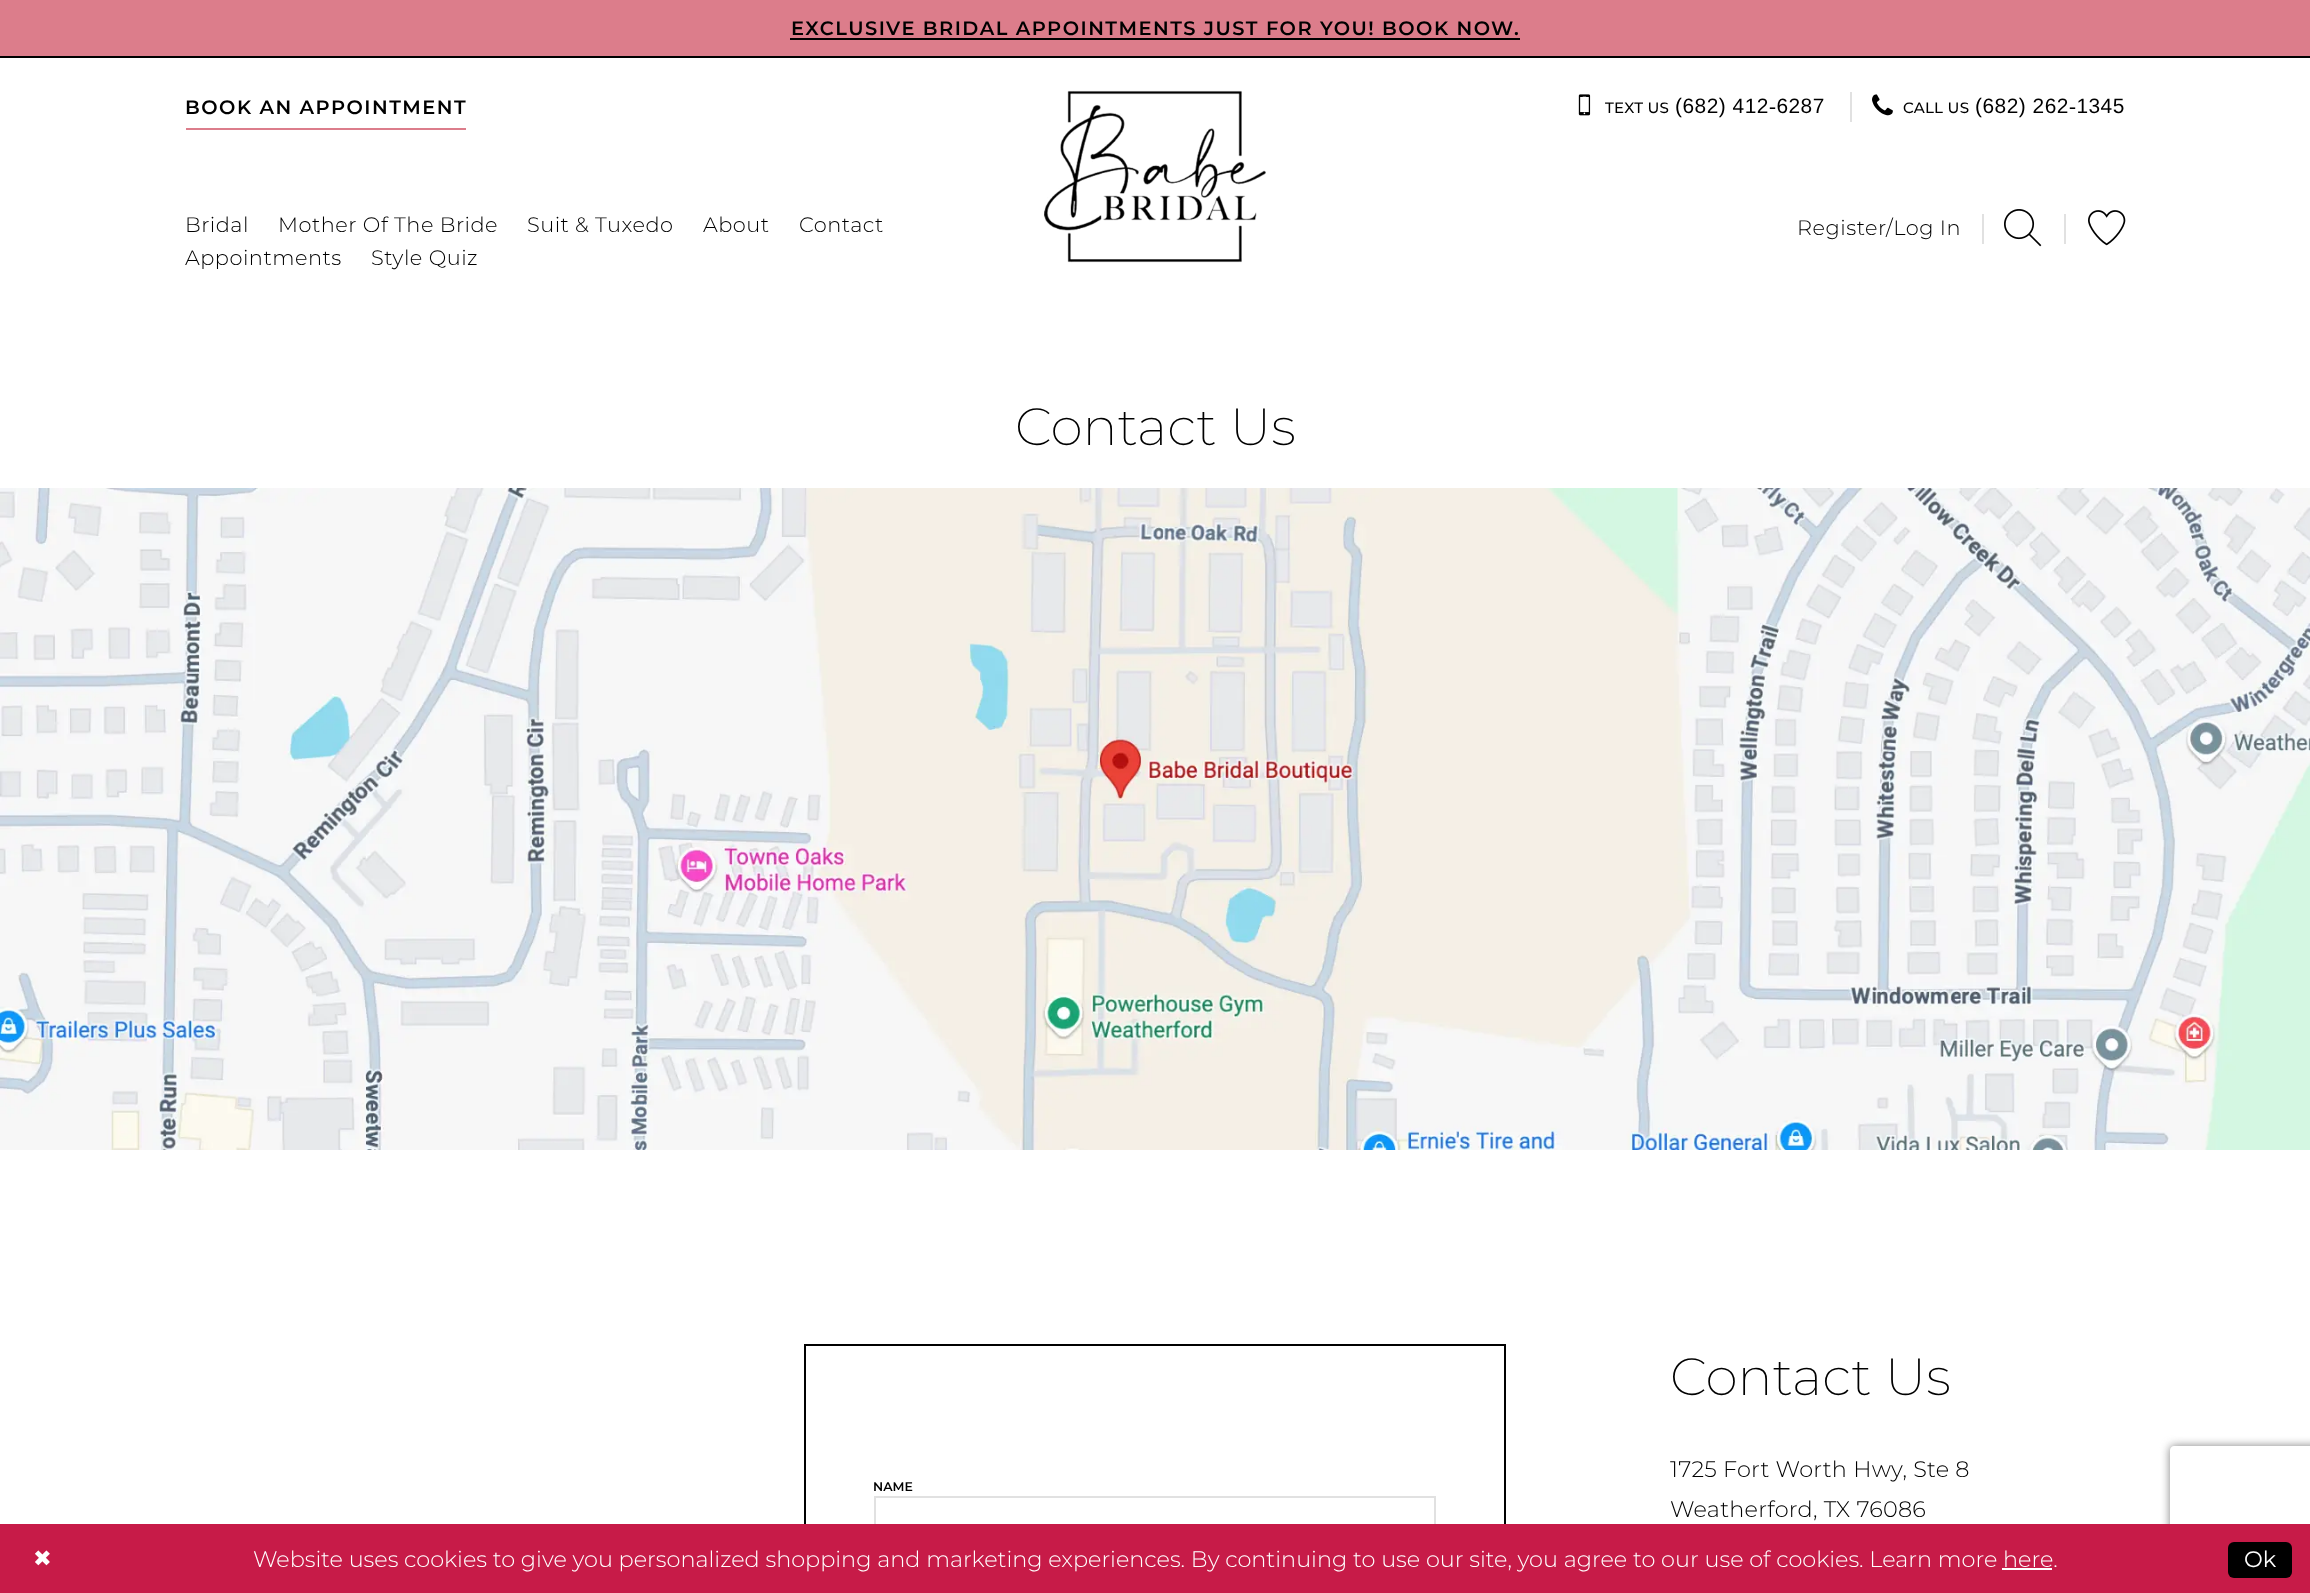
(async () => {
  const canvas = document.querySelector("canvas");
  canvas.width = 2310;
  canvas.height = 1593;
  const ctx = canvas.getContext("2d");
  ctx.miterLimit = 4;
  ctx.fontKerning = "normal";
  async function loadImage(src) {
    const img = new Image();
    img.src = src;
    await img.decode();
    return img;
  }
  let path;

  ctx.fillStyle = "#ffffff";
  ctx.fillRect(0, 0, 2310, 1593);
  for (const [x, y, w, h, color] of [
    [0, 0, 2310, 56, "#dc7d8b"],
    [0, 56, 2310, 2, "#000000"],
    [790, 38, 730, 2, "#000000"],
    [186, 128, 280, 2, "#dc7d8b"],
  ]) {
    ctx.fillStyle = color;
    ctx.fillRect(x, y, w, h);
  }
  ctx.drawImage(await loadImage("img/1.png"), 1578, 94, 13, 22);
  ctx.fillStyle = "#e1e1e1";
  ctx.fillRect(1850, 92, 2, 30);
  ctx.drawImage(await loadImage("img/2.png"), 1872, 94, 21, 22);
  ctx.drawImage(await loadImage("img/3.png"), 1044, 90, 222, 173);
  ctx.fillRect(1982, 214, 2, 30);
  ctx.drawImage(await loadImage("img/4.png"), 2004, 209, 38, 38);
  ctx.fillRect(2064, 214, 2, 30);
  ctx.drawImage(await loadImage("img/5.png"), 2088, 210, 38, 36);
  ctx.drawImage(await loadImage("img/6.png"), 0, 488, 2310, 662);
  ctx.strokeStyle = "#000000";
  ctx.lineWidth = 2;
  ctx.strokeRect(805, 1345, 700, 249);
  ctx.strokeStyle = "#e1e1e1";
  ctx.strokeRect(875, 1497, 560, 68);
  ctx.save();
  path = new Path2D("M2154 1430H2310V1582H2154ZM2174 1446H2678C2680 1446 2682 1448 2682 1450V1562C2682 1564 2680 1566 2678 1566H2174C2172 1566 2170 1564 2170 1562V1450C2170 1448 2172 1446 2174 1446Z");
  ctx.clip(path, "evenodd");
  ctx.fillStyle = "#808080";
  ctx.filter = "blur(5px)";
  ctx.beginPath();
  ctx.roundRect(2170, 1446, 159, 120, 4);
  ctx.fill();
  ctx.filter = "none";
  ctx.restore();
  ctx.fillStyle = "#c71b48";
  ctx.fillRect(0, 1524, 2310, 69);
  ctx.fillStyle = "#ffffff";
  ctx.fillRect(2002, 1568, 50, 2);
  ctx.fillStyle = "#000000";
  ctx.beginPath();
  ctx.roundRect(2228, 1542, 64, 36, 6);
  ctx.fill();
  ctx.letterSpacing = "1.5px";
  ctx.font = "600 19.4px Montserrat";
  ctx.fillText("EXCLUSIVE BRIDAL APPOINTMENTS JUST FOR YOU! BOOK NOW.", 791, 35);
  ctx.fillText("BOOK AN APPOINTMENT", 185, 114);
  ctx.letterSpacing = "0.25px";
  ctx.font = "500 15px Montserrat";
  ctx.fillText("TEXT US", 1605, 113);
  ctx.letterSpacing = "0.5px";
  ctx.font = "20.9px Liberation Sans";
  ctx.fillText("(682) 412‑6287", 1675, 113);
  ctx.letterSpacing = "0.25px";
  ctx.font = "500 15px Montserrat";
  ctx.fillText("CALL US", 1903, 113);
  ctx.letterSpacing = "0.5px";
  ctx.font = "20.9px Liberation Sans";
  ctx.fillText("(682) 262‑1345", 1975, 113);
  ctx.font = "300 20.9px Montserrat";
  for (const [text, x, y] of [
    ["Bridal", 185, 232],
    ["Mother Of The Bride", 278, 232],
    ["Suit & Tuxedo", 527, 232],
    ["About", 703, 232],
    ["Contact", 799, 232],
    ["Appointments", 185, 265],
    ["Style Quiz", 371, 265],
    ["Register/Log In", 1797, 235],
  ]) {
    ctx.fillText(text, x, y);
  }
  ctx.letterSpacing = "0px";
  ctx.font = "200 52.25px Montserrat";
  ctx.fillText("Contact Us", 1015, 445);
  ctx.font = "600 12.5px Montserrat";
  ctx.fillText("NAME", 873, 1491);
  ctx.font = "200 52.25px Montserrat";
  ctx.fillText("Contact Us", 1670, 1395);
  ctx.letterSpacing = "0.25px";
  ctx.font = "300 22.38px Montserrat";
  ctx.fillText("1725 Fort Worth Hwy, Ste 8", 1670, 1477);
  ctx.fillText("Weatherford, TX 76086", 1670, 1517);
  ctx.letterSpacing = "0px";
  ctx.font = "22.38px DejaVu Sans";
  ctx.fillStyle = "#ffffff";
  ctx.fillText("✖", 33, 1566);
  ctx.font = "300 22.38px Montserrat";
  ctx.fillText("Website uses cookies to give you personalized shopping and marketing experiences. By continuing to use our site, you agree to our use of cookies. Learn more here.", 253, 1567);
  ctx.font = "22.38px Montserrat";
  ctx.fillText("Ok", 2244, 1567);
})();
